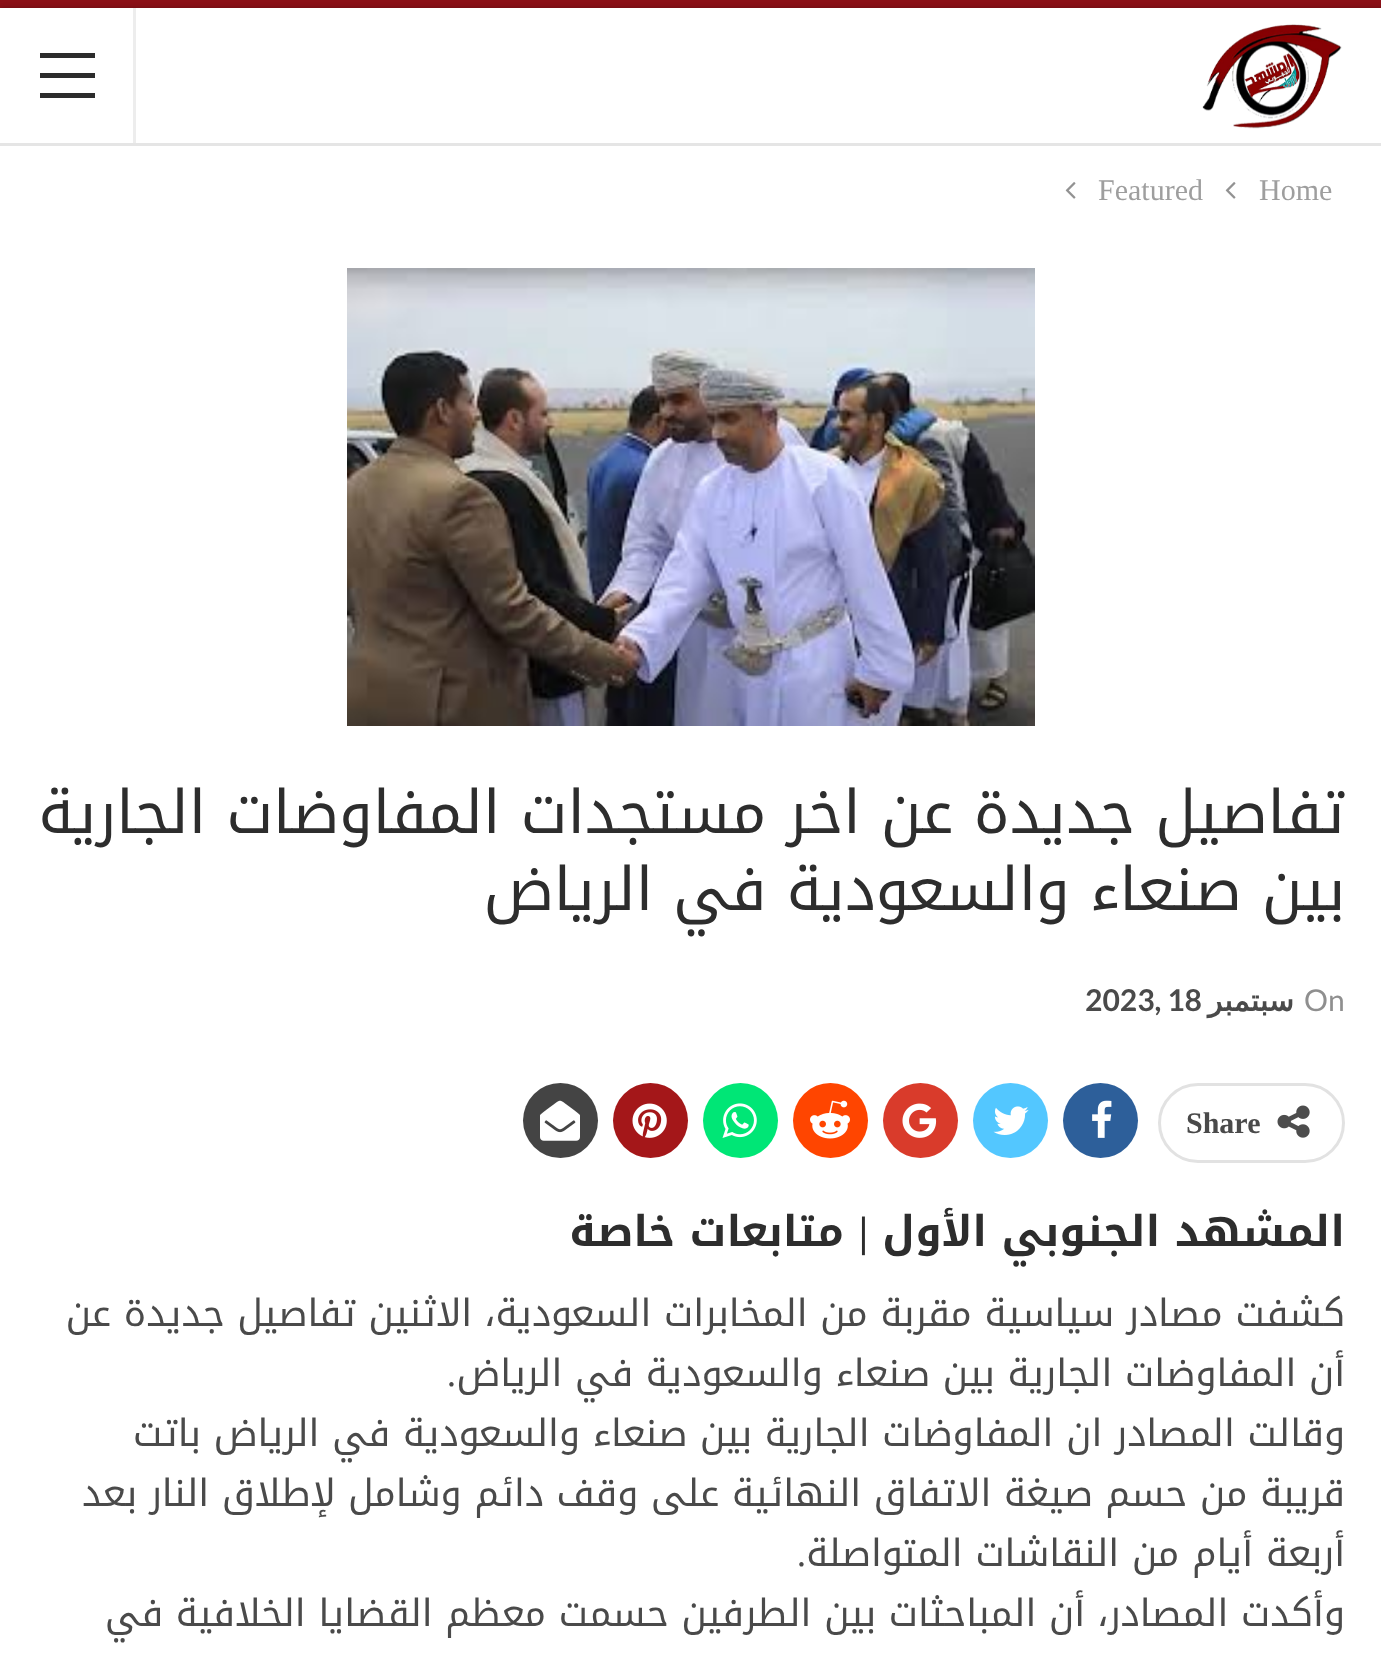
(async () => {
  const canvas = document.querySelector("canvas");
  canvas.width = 1381;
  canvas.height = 1655;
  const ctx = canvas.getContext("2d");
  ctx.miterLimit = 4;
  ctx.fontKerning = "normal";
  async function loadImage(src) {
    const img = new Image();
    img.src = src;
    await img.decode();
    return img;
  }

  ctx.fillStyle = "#8b1017";
  ctx.fillRect(0, 0, 1381, 1655);
  ctx.fillStyle = "rgba(0, 0, 0, 0.27)";
  ctx.filter = "blur(2.5px)";
  ctx.beginPath();
  ctx.rect(0, 8, 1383, 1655);
  ctx.fill();
  ctx.filter = "none";
  ctx.fillStyle = "#ffffff";
  ctx.fillRect(0, 8, 1381, 1647);
  ctx.fillStyle = "#e5e5e5";
  ctx.fillRect(0, 143, 1381, 3);
  ctx.drawImage(await loadImage("img/1.png"), 1202, 24, 140, 105);
  for (const [x, y, w, h, color] of [
    [133, 8, 3, 135, "#ededed"],
    [40, 73, 55, 5, "#2c2c2c"],
    [40, 53, 55, 5, "#2c2c2c"],
    [40, 93, 55, 5, "#2c2c2c"],
  ]) {
    ctx.fillStyle = color;
    ctx.fillRect(x, y, w, h);
  }
  ctx.drawImage(await loadImage("img/2.png"), 1225, 182, 11, 17);
  ctx.drawImage(await loadImage("img/2.png"), 1065, 182, 11, 17);
  ctx.drawImage(await loadImage("img/3.png"), 347, 268, 688, 458);
  ctx.beginPath();
  ctx.roundRect(1159.5, 1084.5, 184, 77, 38.5);
  ctx.strokeStyle = "#e2e2e2";
  ctx.lineWidth = 3;
  ctx.stroke();
  ctx.drawImage(await loadImage("img/4.png"), 1277, 1105, 33, 33);
  ctx.fillStyle = "#2d5f9a";
  ctx.beginPath();
  ctx.arc(1100.5, 1120.5, 37.5, 0, Math.PI * 2);
  ctx.fill();
  ctx.drawImage(await loadImage("img/5.png"), 1092, 1100, 20, 38);
  ctx.fillStyle = "#53c7ff";
  ctx.beginPath();
  ctx.arc(1010.5, 1120.5, 37.5, 0, Math.PI * 2);
  ctx.fill();
  ctx.drawImage(await loadImage("img/6.png"), 993, 1106, 36, 29);
  ctx.fillStyle = "#d93b2b";
  ctx.beginPath();
  ctx.arc(920.5, 1120.5, 37.5, 0, Math.PI * 2);
  ctx.fill();
  ctx.drawImage(await loadImage("img/7.png"), 902, 1103, 35, 35);
  ctx.fillStyle = "#ff4500";
  ctx.beginPath();
  ctx.arc(830.5, 1120.5, 37.5, 0, Math.PI * 2);
  ctx.fill();
  ctx.drawImage(await loadImage("img/8.png"), 810, 1100, 40, 39);
  ctx.fillStyle = "#00e676";
  ctx.beginPath();
  ctx.arc(740.5, 1120.5, 37.5, 0, Math.PI * 2);
  ctx.fill();
  ctx.drawImage(await loadImage("img/9.png"), 722, 1103, 35, 35);
  ctx.fillStyle = "#a41719";
  ctx.beginPath();
  ctx.arc(650.5, 1120.5, 37.5, 0, Math.PI * 2);
  ctx.fill();
  ctx.drawImage(await loadImage("img/10.png"), 632, 1103, 35, 35);
  ctx.fillStyle = "#444444";
  ctx.beginPath();
  ctx.arc(560.5, 1120.5, 37.5, 0, Math.PI * 2);
  ctx.fill();
  ctx.drawImage(await loadImage("img/11.png"), 540, 1100, 40, 41);
  ctx.font = "30px Liberation Serif";
  ctx.fillStyle = "#9e9e9e";
  ctx.fillText("Home", 1259, 200);
  ctx.fillText("Featured", 1098, 200);
  ctx.direction = "rtl";
  ctx.font = "60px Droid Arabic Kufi";
  ctx.fillStyle = "#2d2d2d";
  ctx.fillText("تفاصيل جديدة عن اخر مستجدات المفاوضات الجارية", 1345, 833);
  ctx.fillText("بين صنعاء والسعودية في الرياض", 1345, 910);
  ctx.direction = "ltr";
  ctx.font = "30px Lato";
  ctx.fillStyle = "#8f8f8f";
  ctx.fillText("On", 1304, 1011);
  ctx.direction = "rtl";
  ctx.font = "bold 30px DejaVu Sans";
  ctx.fillStyle = "#4a4a4a";
  ctx.fillText("سبتمبر", 1294, 1011);
  ctx.direction = "ltr";
  ctx.font = "bold 30px Lato";
  ctx.fillText("2023, 18", 1085, 1011);
  ctx.font = "bold 30px Liberation Serif";
  ctx.fillText("Share", 1186, 1133);
  ctx.direction = "rtl";
  ctx.font = "bold 42.5px Droid Arabic Kufi";
  ctx.fillStyle = "#2d2d2d";
  ctx.fillText("المشهد الجنوبي الأول", 1345, 1246);
  ctx.font = "bold 42.5px Liberation Serif";
  ctx.fillText("|", 868, 1246);
  ctx.font = "bold 42.5px Droid Arabic Kufi";
  ctx.fillText("متابعات خاصة", 844, 1246);
  ctx.font = "37.5px Droid Arabic Kufi";
  ctx.fillStyle = "#4a4a4a";
  ctx.fillText("كشفت مصادر سياسية مقربة من المخابرات السعودية، الاثنين تفاصيل جديدة عن", 1345, 1326);
  ctx.fillText("أن المفاوضات الجارية بين صنعاء والسعودية في الرياض", 1345, 1386);
  ctx.font = "37.5px Liberation Serif";
  ctx.fillText(".", 456, 1386);
  ctx.font = "37.5px Droid Arabic Kufi";
  for (const [text, x, y] of [
    ["وقالت المصادر ان المفاوضات الجارية بين صنعاء والسعودية في الرياض باتت", 1345, 1446],
    ["قريبة من حسم صيغة الاتفاق النهائية على وقف دائم وشامل لإطلاق النار بعد", 1345, 1506],
    ["أربعة أيام من النقاشات المتواصلة", 1345, 1566],
  ]) {
    ctx.fillText(text, x, y);
  }
  ctx.font = "37.5px Liberation Serif";
  ctx.fillText(".", 806, 1566);
  ctx.font = "37.5px Droid Arabic Kufi";
  ctx.fillText("وأكدت المصادر، أن المباحثات بين الطرفين حسمت معظم القضايا الخلافية في", 1345, 1626);
})();
